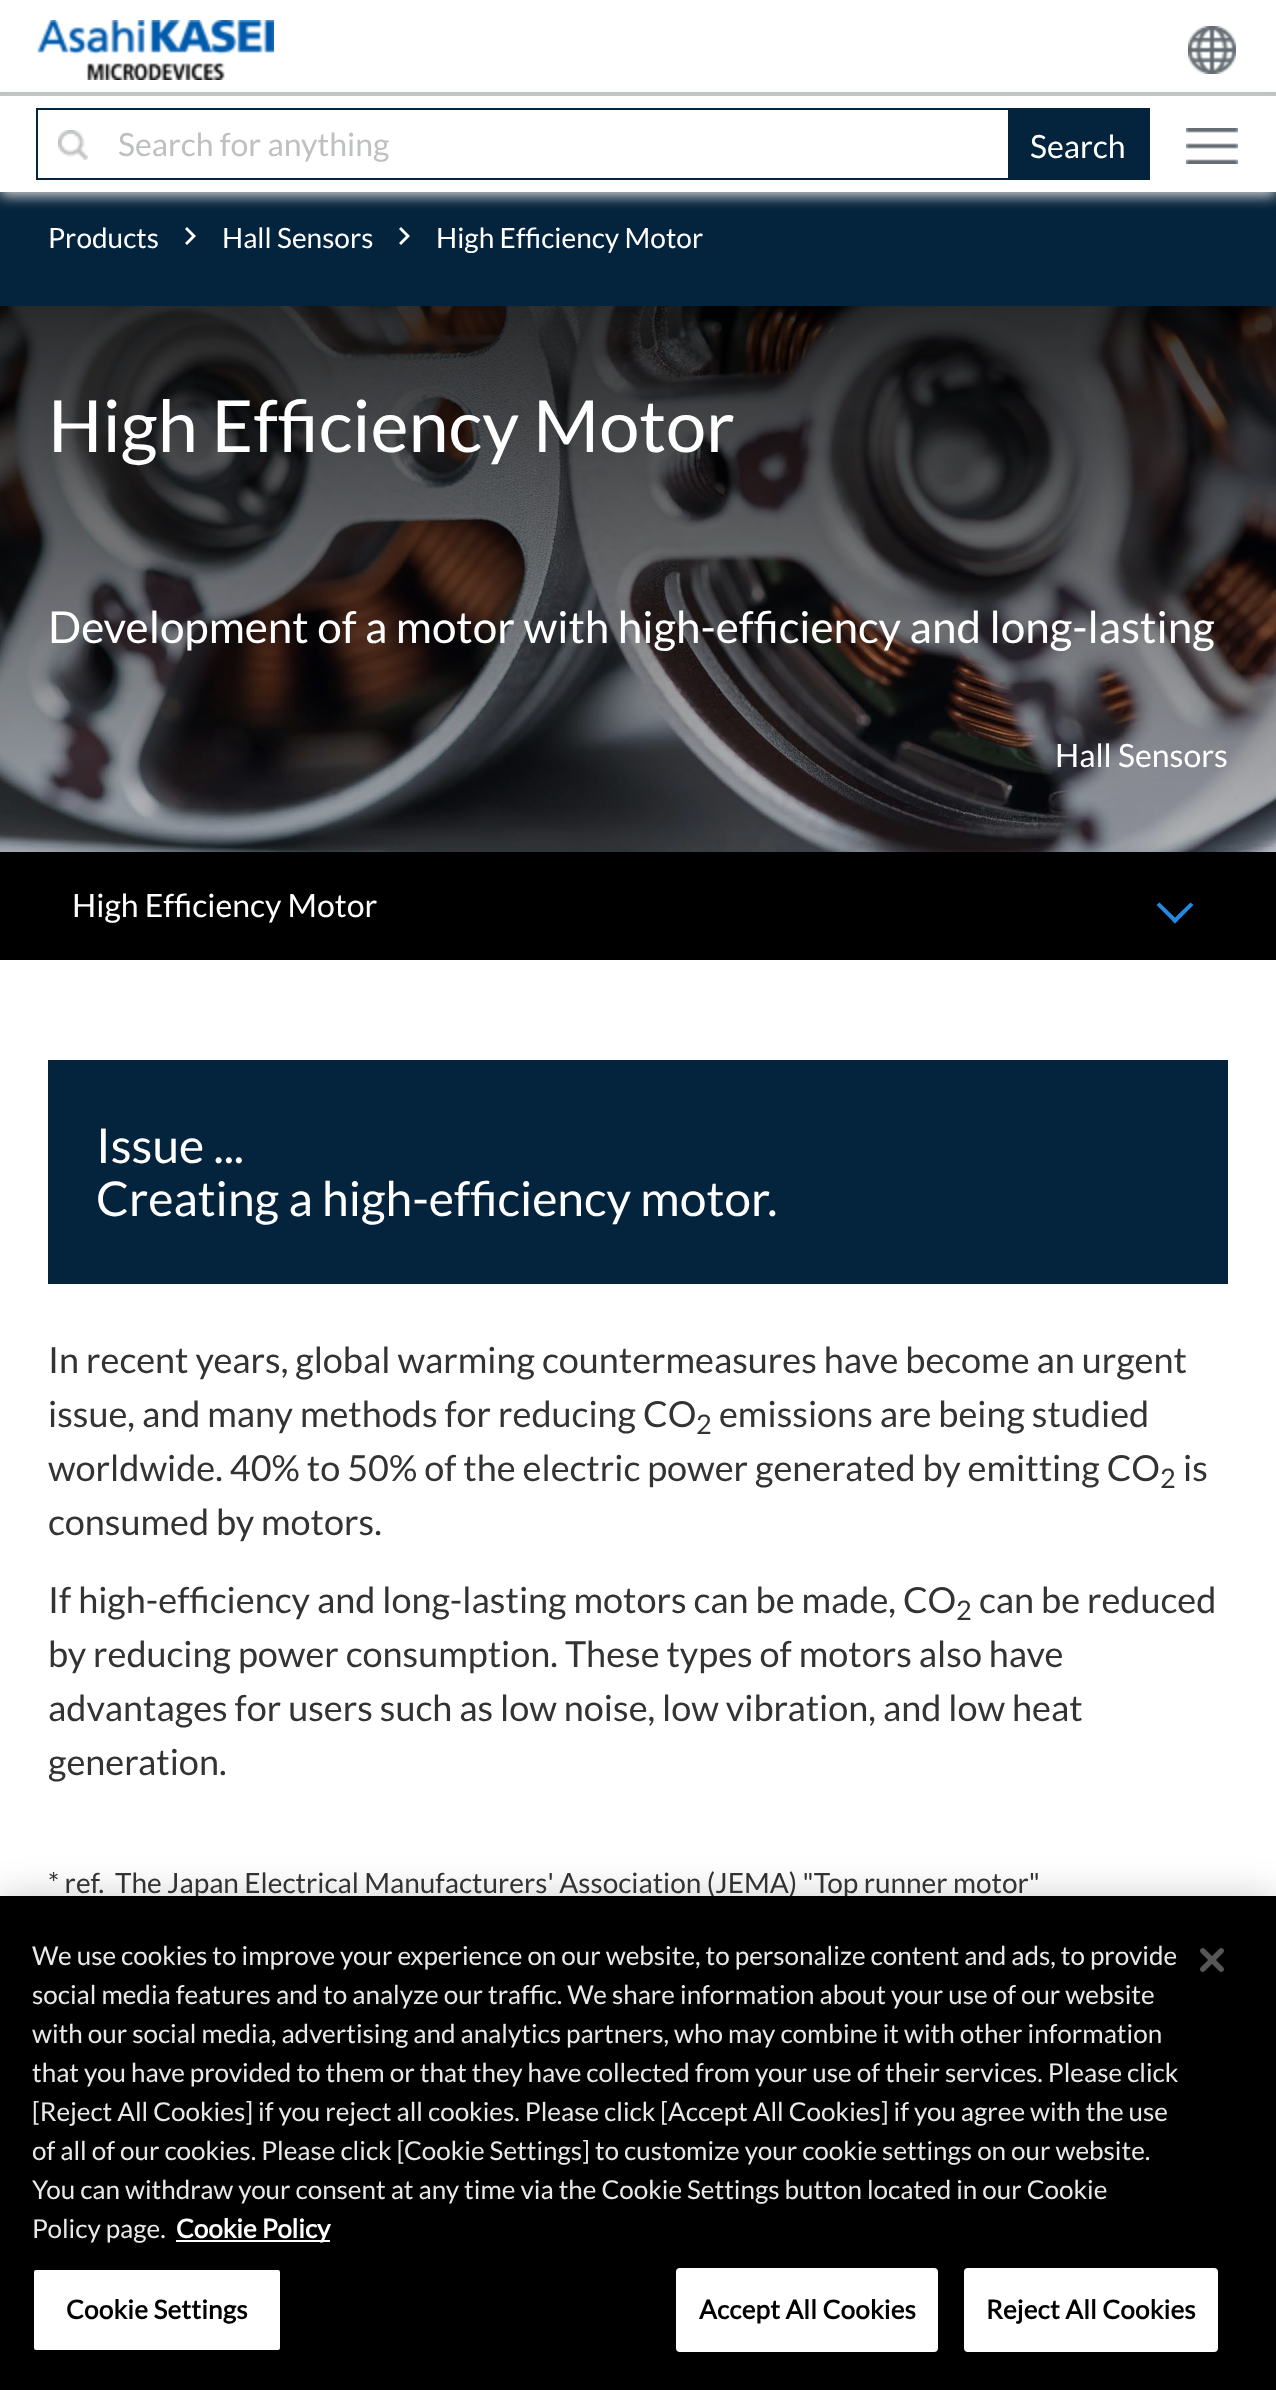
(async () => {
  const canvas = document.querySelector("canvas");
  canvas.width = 1276;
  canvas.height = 2390;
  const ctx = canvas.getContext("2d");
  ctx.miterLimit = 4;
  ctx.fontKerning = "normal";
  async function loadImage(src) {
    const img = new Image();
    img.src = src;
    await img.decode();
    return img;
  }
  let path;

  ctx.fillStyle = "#ffffff";
  ctx.fillRect(0, 0, 1276, 2390);
  ctx.fillStyle = "#bfc0c0";
  ctx.fillRect(0, 92, 1276, 4);
  ctx.drawImage(await loadImage("img/1.png"), 37, 20, 237, 60);
  ctx.drawImage(await loadImage("img/2.png"), 1188, 26, 48, 48);
  ctx.fillStyle = "#04233c";
  ctx.fillRect(0, 192, 1276, 114);
  ctx.save();
  path = new Path2D("M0 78H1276V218H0ZM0 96H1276V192H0Z");
  ctx.clip(path, "evenodd");
  ctx.fillStyle = "#d7d8d8";
  ctx.filter = "blur(7px)";
  ctx.beginPath();
  ctx.rect(0, 100, 1276, 96);
  ctx.fill();
  ctx.filter = "none";
  ctx.restore();
  ctx.drawImage(await loadImage("img/3.png"), 58, 130, 30, 30);
  ctx.fillRect(1008, 110, 140, 68);
  ctx.strokeStyle = "#04233c";
  ctx.lineWidth = 2;
  ctx.strokeRect(37, 109, 1112, 70);
  ctx.drawImage(await loadImage("img/4.png"), 1186, 128, 52, 36);
  ctx.fillStyle = "#ffffff";
  path = new Path2D("M187 227L196 236L187 245L185 243L192 236L185 229Z");
  ctx.fill(path);
  path = new Path2D("M401 227L410 236L401 245L399 243L406 236L399 229Z");
  ctx.fill(path);
  ctx.drawImage(await loadImage("img/5.png"), 0, 306, 1276, 546);
  ctx.fillStyle = "#000000";
  ctx.fillRect(0, 852, 1276, 108);
  ctx.fillStyle = "#2489e2";
  path = new Path2D("M1193.5 905L1175 923.5L1172 920.5L1190.5 902.5Z");
  ctx.fill(path);
  path = new Path2D("M1178 920.5L1175 923.5L1156.5 905L1159.5 902.5Z");
  ctx.fill(path);
  ctx.fillStyle = "#04233c";
  ctx.fillRect(48, 1060, 1180, 224);
  ctx.fillStyle = "rgba(0, 0, 0, 0.2)";
  ctx.filter = "blur(18px)";
  ctx.beginPath();
  ctx.rect(0, 1896, 1276, 494);
  ctx.fill();
  ctx.filter = "none";
  ctx.font = "32px Lato";
  ctx.fillStyle = "#bfc0c0";
  ctx.fillText("Search for anything", 118, 156);
  ctx.fillStyle = "#ffffff";
  ctx.fillText("Search", 1030, 158);
  ctx.font = "28px Lato";
  for (const [text, x, y] of [
    ["Products", 48, 248],
    ["Hall Sensors", 222, 248],
    ["High Efficiency Motor", 436, 248],
  ]) {
    ctx.fillText(text, x, y);
  }
  ctx.font = "72px Lato";
  ctx.fillText("High Efficiency Motor", 48, 452);
  ctx.font = "44px Lato";
  ctx.fillText("Development of a motor with high-efficiency and long-lasting", 48, 643);
  ctx.font = "32px Lato";
  ctx.fillText("Hall Sensors", 1055, 767);
  ctx.fillText("High Efficiency Motor", 72, 917);
  ctx.font = "48px Lato";
  ctx.fillText("Issue ...", 96, 1163);
  ctx.fillText("Creating a high-efficiency motor.", 96, 1216);
  ctx.font = "36px Lato";
  ctx.fillStyle = "#333333";
  ctx.fillText("In recent years, global warming countermeasures have become an urgent", 48, 1373);
  ctx.fillText("issue, and many methods for reducing CO", 48, 1427);
  ctx.font = "27px Lato";
  ctx.fillText("2", 696, 1434);
  ctx.font = "36px Lato";
  ctx.fillText("emissions are being studied", 719, 1427);
  ctx.fillText("worldwide. 40% to 50% of the electric power generated by emitting CO", 48, 1481);
  ctx.font = "27px Lato";
  ctx.fillText("2", 1160, 1488);
  ctx.font = "36px Lato";
  for (const [text, x, y] of [
    ["is", 1183, 1481],
    ["consumed by motors.", 48, 1535],
    ["If high-efficiency and long-lasting motors can be made, CO", 48, 1613],
  ]) {
    ctx.fillText(text, x, y);
  }
  ctx.font = "27px Lato";
  ctx.fillText("2", 956, 1620);
  ctx.font = "36px Lato";
  for (const [text, x, y] of [
    ["can be reduced", 979, 1613],
    ["by reducing power consumption. These types of motors also have", 48, 1667],
    ["advantages for users such as low noise, low vibration, and low heat", 48, 1721],
    ["generation.", 48, 1775],
  ]) {
    ctx.fillText(text, x, y);
  }
  ctx.font = "28px Lato";
  ctx.fillText("* ref.  The Japan Electrical Manufacturers' Association (JEMA) \"Top runner motor\"", 48, 1893);
  ctx.fillStyle = "#000000";
  ctx.fillRect(0, 1896, 1276, 494);
  ctx.font = "26px Lato";
  ctx.fillStyle = "#e9e9e9";
  for (const [text, x, y] of [
    ["We use cookies to improve your experience on our website, to personalize content and ads, to provide", 32, 1965],
    ["social media features and to analyze our traffic. We share information about your use of our website", 32, 2004],
    ["with our social media, advertising and analytics partners, who may combine it with other information", 32, 2043],
    ["that you have provided to them or that they have collected from your use of their services. Please click", 32, 2082],
    ["[Reject All Cookies] if you reject all cookies. Please click [Accept All Cookies] if you agree with the use", 32, 2121],
    ["of all of our cookies. Please click [Cookie Settings] to customize your cookie settings on our website.", 32, 2160],
    ["You can withdraw your consent at any time via the Cookie Settings button located in our Cookie", 32, 2199],
    ["Policy page.", 32, 2238],
  ]) {
    ctx.fillText(text, x, y);
  }
  ctx.fillStyle = "#ffffff";
  ctx.fillRect(176, 2240, 154, 2);
  ctx.font = "bold 26px Lato";
  ctx.fillText("Cookie Policy", 176, 2238);
  ctx.beginPath();
  ctx.roundRect(33, 2269, 248, 82, 3);
  ctx.fill();
  ctx.strokeStyle = "#000000";
  ctx.stroke();
  ctx.letterSpacing = "0.25px";
  ctx.fillStyle = "#000000";
  ctx.fillText("Cookie Settings", 66, 2319);
  ctx.fillStyle = "#ffffff";
  ctx.beginPath();
  ctx.roundRect(677, 2269, 260, 82, 3);
  ctx.fill();
  ctx.strokeStyle = "#ffffff";
  ctx.stroke();
  ctx.fillStyle = "#000000";
  ctx.fillText("Accept All Cookies", 699, 2319);
  ctx.fillStyle = "#ffffff";
  ctx.beginPath();
  ctx.roundRect(965, 2269, 252, 82, 3);
  ctx.fill();
  ctx.stroke();
  ctx.fillStyle = "#000000";
  ctx.fillText("Reject All Cookies", 986, 2319);
  ctx.drawImage(await loadImage("img/6.png"), 1200, 1948, 24, 24);
})();
